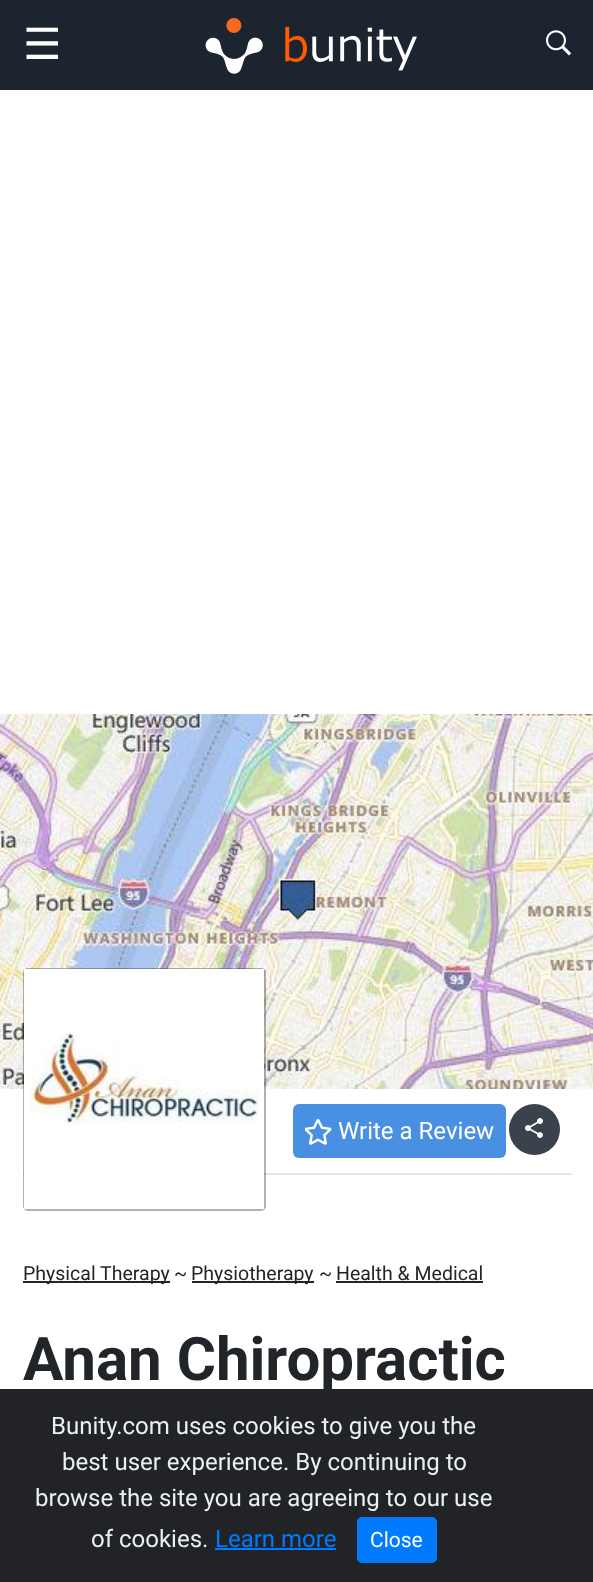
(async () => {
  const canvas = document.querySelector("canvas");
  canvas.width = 593;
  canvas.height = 1582;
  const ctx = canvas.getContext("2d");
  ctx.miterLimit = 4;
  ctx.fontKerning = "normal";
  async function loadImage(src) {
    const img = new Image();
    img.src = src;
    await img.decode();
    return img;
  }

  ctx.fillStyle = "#ffffff";
  ctx.fillRect(0, 0, 593, 1582);
  ctx.fillStyle = "#1b242f";
  ctx.fillRect(0, 0, 593, 90);
  ctx.drawImage(await loadImage("img/1.png"), 205, 18, 212, 56);
  ctx.drawImage(await loadImage("img/2.png"), 546, 30, 26, 26);
  ctx.drawImage(await loadImage("img/3.png"), 0, 714, 593, 375);
  ctx.fillStyle = "#e4e5ea";
  ctx.fillRect(23, 1173, 549, 2);
  ctx.fillStyle = "rgba(0, 0, 0, 0.3)";
  ctx.beginPath();
  ctx.roundRect(23, 968, 243, 243, 5);
  ctx.fill();
  ctx.fillStyle = "#ffffff";
  ctx.beginPath();
  ctx.rect(27, 972, 234, 234);
  ctx.fill();
  ctx.strokeStyle = "#ffffff";
  ctx.lineWidth = 6;
  ctx.stroke();
  ctx.drawImage(await loadImage("img/4.png"), 30, 1032, 228, 93);
  ctx.fillStyle = "#4a90e2";
  ctx.beginPath();
  ctx.roundRect(293, 1104, 213, 54, 6);
  ctx.fill();
  ctx.drawImage(await loadImage("img/5.png"), 305, 1119, 27, 26);
  ctx.fillStyle = "#3a424c";
  ctx.beginPath();
  ctx.arc(534.5, 1129.5, 25.5, 0, Math.PI * 2);
  ctx.fill();
  ctx.drawImage(await loadImage("img/6.png"), 525, 1118, 18, 20);
  for (const [x, y, w, h, color] of [
    [23, 1281, 147, 2, "#212529"],
    [192, 1281, 122, 2, "#212529"],
    [336, 1281, 147, 2, "#212529"],
  ]) {
    ctx.fillStyle = color;
    ctx.fillRect(x, y, w, h);
  }
  ctx.font = "43px DejaVu Sans";
  ctx.fillStyle = "#ffffff";
  ctx.fillText("☰", 23, 59);
  ctx.font = "24px Roboto";
  ctx.fillText("Write a Review", 338, 1139);
  ctx.font = "19.5px Roboto";
  ctx.fillStyle = "#212529";
  for (const [text, x, y] of [
    ["Physical Therapy", 23, 1280],
    ["~", 174, 1280],
    ["Physiotherapy", 191, 1280],
    ["~", 319, 1280],
    ["Health & Medical", 336, 1280],
  ]) {
    ctx.fillText(text, x, y);
  }
  ctx.font = "bold 60px Roboto";
  ctx.fillText("Anan Chiropractic", 23, 1380);
  ctx.fillStyle = "#212327";
  ctx.fillRect(0, 1389, 593, 193);
  ctx.font = "24px Roboto";
  ctx.fillStyle = "#ecf0f1";
  for (const [text, x, y] of [
    ["Bunity.com uses cookies to give you the", 51, 1434],
    ["best user experience. By continuing to", 62, 1470],
    ["browse the site you are agreeing to our use", 35, 1506],
    ["of cookies.", 91, 1547],
  ]) {
    ctx.fillText(text, x, y);
  }
  ctx.fillStyle = "#007bff";
  ctx.fillText("Learn more", 215, 1547);
  ctx.fillRect(215, 1548, 121, 2);
  ctx.beginPath();
  ctx.roundRect(358, 1518, 78, 44, 4);
  ctx.fill();
  ctx.strokeStyle = "#007bff";
  ctx.lineWidth = 2;
  ctx.stroke();
  ctx.font = "21px Roboto";
  ctx.fillStyle = "#ffffff";
  ctx.fillText("Close", 370, 1547);
})();
